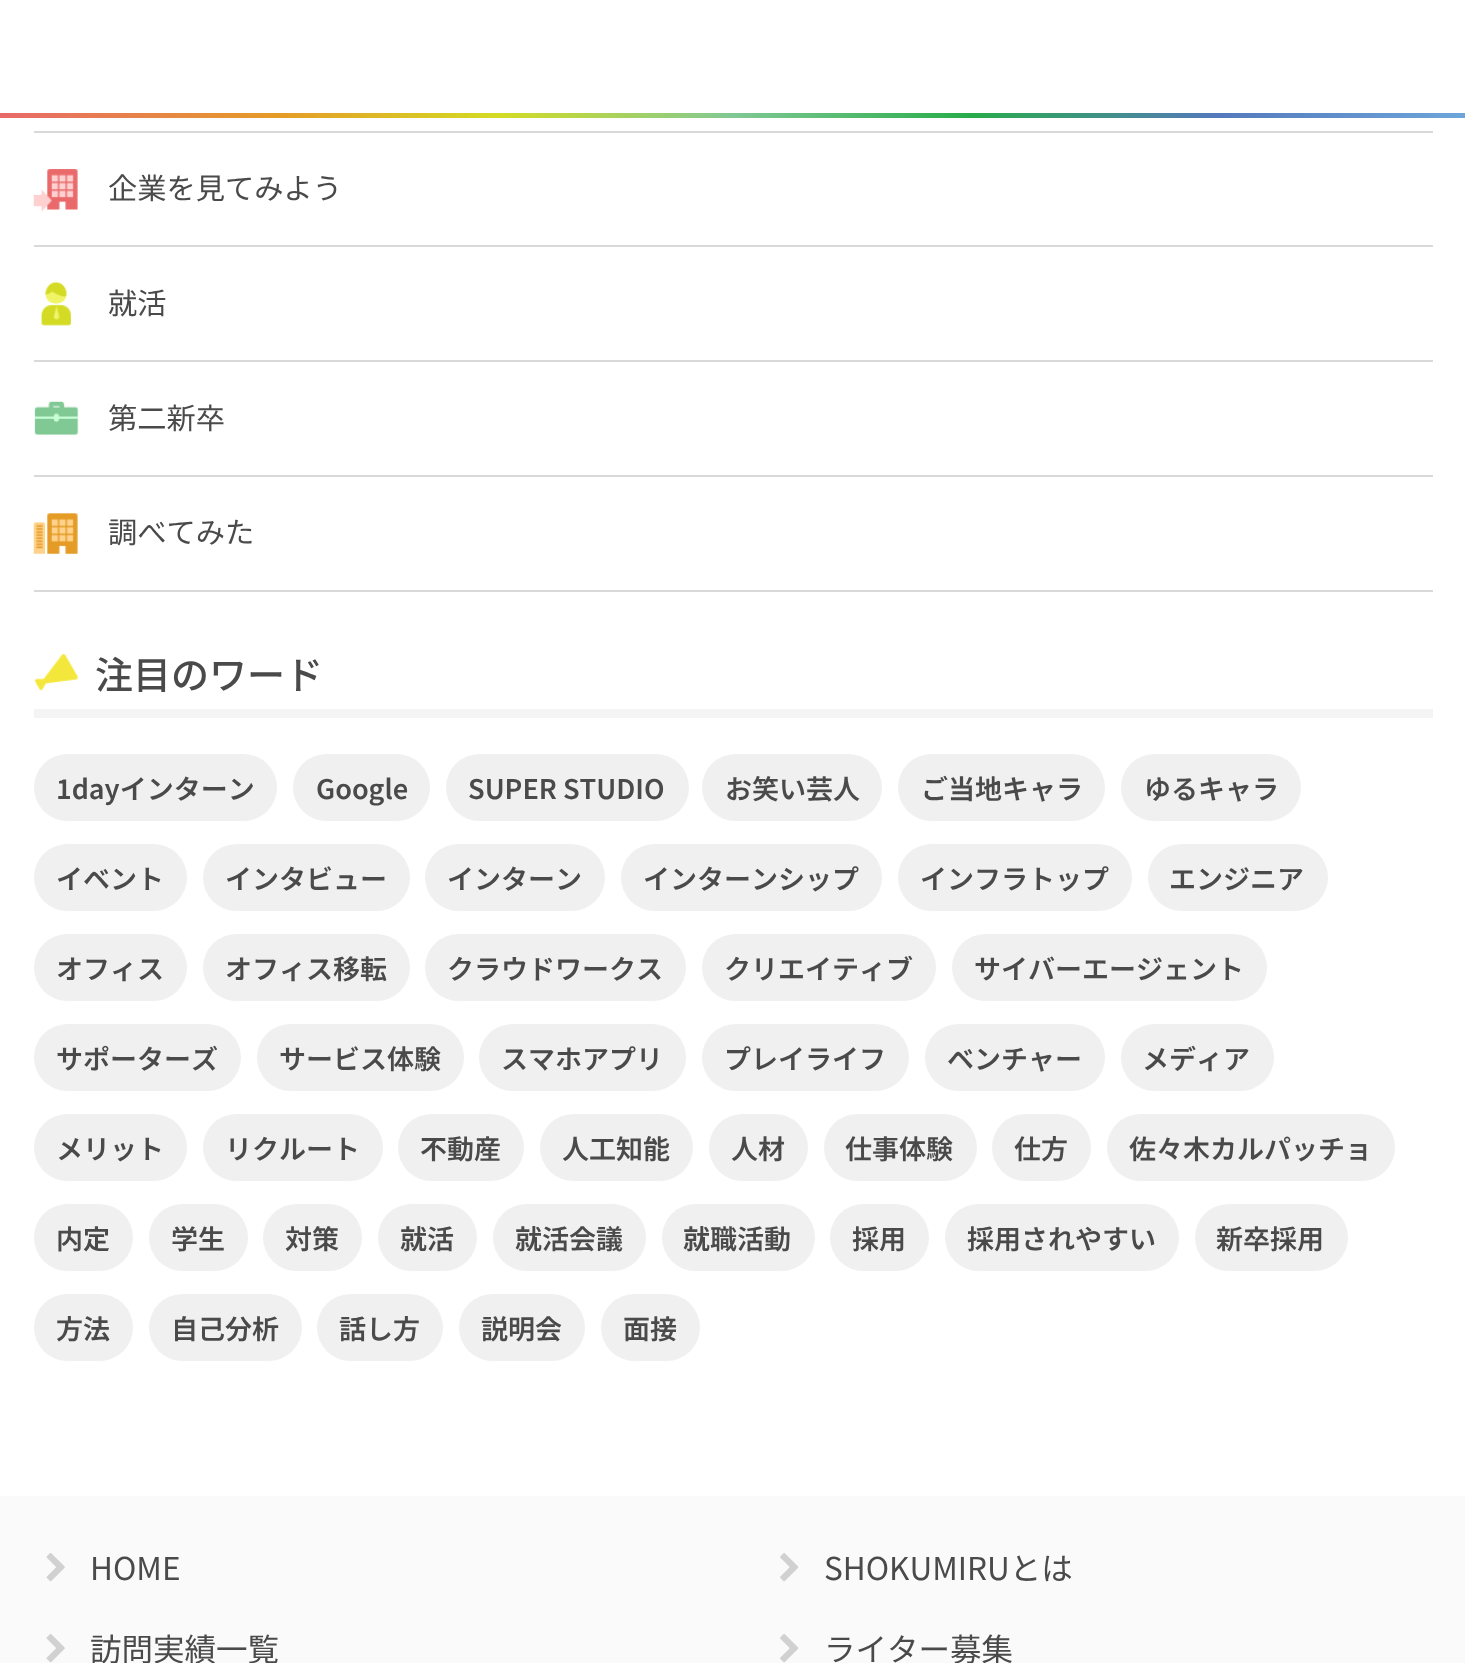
(async () => {
  const canvas = document.querySelector("canvas");
  canvas.width = 1465;
  canvas.height = 1663;
  const ctx = canvas.getContext("2d");
  ctx.miterLimit = 4;
  ctx.fontKerning = "none";
  async function loadImage(src) {
    const img = new Image();
    img.src = src;
    await img.decode();
    return img;
  }
  let gradient;

  ctx.fillStyle = "#ffffff";
  ctx.fillRect(0, 0, 1465, 1663);
  gradient = ctx.createLinearGradient(0, 115, 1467, 115);
  gradient.addColorStop(0, "#e9696a");
  gradient.addColorStop(0.19, "#e59c27");
  gradient.addColorStop(0.34, "#d3db24");
  gradient.addColorStop(0.5, "#80c994");
  gradient.addColorStop(0.66, "#28ac4a");
  gradient.addColorStop(0.83, "#5579bc");
  gradient.addColorStop(1, "#6da6da");
  ctx.fillStyle = gradient;
  ctx.fillRect(0, 113, 1465, 5);
  ctx.fillStyle = "#d9d9d9";
  ctx.fillRect(34, 131, 1399, 2);
  ctx.fillRect(34, 245, 1399, 2);
  ctx.drawImage(await loadImage("img/1.png"), 33, 169, 45, 43);
  ctx.fillRect(34, 360, 1399, 2);
  ctx.drawImage(await loadImage("img/2.png"), 41, 281, 30, 45);
  ctx.fillRect(34, 475, 1399, 2);
  ctx.drawImage(await loadImage("img/3.png"), 34, 400, 45, 35);
  ctx.fillRect(34, 590, 1399, 2);
  ctx.drawImage(await loadImage("img/4.png"), 33, 513, 45, 41);
  ctx.fillStyle = "#f4f4f4";
  ctx.fillRect(34, 709, 1399, 9);
  ctx.drawImage(await loadImage("img/5.png"), 34, 653, 45, 38);
  ctx.fillStyle = "#f0f0f0";
  ctx.beginPath();
  ctx.roundRect(34, 754, 243, 67, 33.5);
  ctx.fill();
  ctx.beginPath();
  ctx.roundRect(293, 754, 137, 67, 33.5);
  ctx.fill();
  ctx.beginPath();
  ctx.roundRect(446, 754, 243, 67, 33.5);
  ctx.fill();
  ctx.beginPath();
  ctx.roundRect(702, 754, 180, 67, 33.5);
  ctx.fill();
  ctx.beginPath();
  ctx.roundRect(898, 754, 207, 67, 33.5);
  ctx.fill();
  ctx.beginPath();
  ctx.roundRect(1121, 754, 180, 67, 33.5);
  ctx.fill();
  ctx.beginPath();
  ctx.roundRect(34, 844, 153, 67, 33.5);
  ctx.fill();
  ctx.beginPath();
  ctx.roundRect(203, 844, 207, 67, 33.5);
  ctx.fill();
  ctx.beginPath();
  ctx.roundRect(425, 844, 180, 67, 33.5);
  ctx.fill();
  ctx.beginPath();
  ctx.roundRect(621, 844, 261, 67, 33.5);
  ctx.fill();
  ctx.beginPath();
  ctx.roundRect(898, 844, 234, 67, 33.5);
  ctx.fill();
  ctx.beginPath();
  ctx.roundRect(1148, 844, 180, 67, 33.5);
  ctx.fill();
  ctx.beginPath();
  ctx.roundRect(34, 934, 153, 67, 33.5);
  ctx.fill();
  ctx.beginPath();
  ctx.roundRect(203, 934, 207, 67, 33.5);
  ctx.fill();
  ctx.beginPath();
  ctx.roundRect(425, 934, 261, 67, 33.5);
  ctx.fill();
  ctx.beginPath();
  ctx.roundRect(702, 934, 234, 67, 33.5);
  ctx.fill();
  ctx.beginPath();
  ctx.roundRect(952, 934, 315, 67, 33.5);
  ctx.fill();
  ctx.beginPath();
  ctx.roundRect(34, 1024, 207, 67, 33.5);
  ctx.fill();
  ctx.beginPath();
  ctx.roundRect(257, 1024, 207, 67, 33.5);
  ctx.fill();
  ctx.beginPath();
  ctx.roundRect(479, 1024, 207, 67, 33.5);
  ctx.fill();
  ctx.beginPath();
  ctx.roundRect(702, 1024, 207, 67, 33.5);
  ctx.fill();
  ctx.beginPath();
  ctx.roundRect(925, 1024, 180, 67, 33.5);
  ctx.fill();
  ctx.beginPath();
  ctx.roundRect(1121, 1024, 153, 67, 33.5);
  ctx.fill();
  ctx.beginPath();
  ctx.roundRect(34, 1114, 153, 67, 33.5);
  ctx.fill();
  ctx.beginPath();
  ctx.roundRect(203, 1114, 180, 67, 33.5);
  ctx.fill();
  ctx.beginPath();
  ctx.roundRect(398, 1114, 126, 67, 33.5);
  ctx.fill();
  ctx.beginPath();
  ctx.roundRect(540, 1114, 153, 67, 33.5);
  ctx.fill();
  ctx.beginPath();
  ctx.roundRect(709, 1114, 99, 67, 33.5);
  ctx.fill();
  ctx.beginPath();
  ctx.roundRect(824, 1114, 153, 67, 33.5);
  ctx.fill();
  ctx.beginPath();
  ctx.roundRect(992, 1114, 99, 67, 33.5);
  ctx.fill();
  ctx.beginPath();
  ctx.roundRect(1107, 1114, 288, 67, 33.5);
  ctx.fill();
  ctx.beginPath();
  ctx.roundRect(34, 1204, 99, 67, 33.5);
  ctx.fill();
  ctx.beginPath();
  ctx.roundRect(149, 1204, 99, 67, 33.5);
  ctx.fill();
  ctx.beginPath();
  ctx.roundRect(263, 1204, 99, 67, 33.5);
  ctx.fill();
  ctx.beginPath();
  ctx.roundRect(378, 1204, 99, 67, 33.5);
  ctx.fill();
  ctx.beginPath();
  ctx.roundRect(493, 1204, 153, 67, 33.5);
  ctx.fill();
  ctx.beginPath();
  ctx.roundRect(662, 1204, 153, 67, 33.5);
  ctx.fill();
  ctx.beginPath();
  ctx.roundRect(830, 1204, 99, 67, 33.5);
  ctx.fill();
  ctx.beginPath();
  ctx.roundRect(945, 1204, 234, 67, 33.5);
  ctx.fill();
  ctx.beginPath();
  ctx.roundRect(1195, 1204, 153, 67, 33.5);
  ctx.fill();
  ctx.beginPath();
  ctx.roundRect(34, 1294, 99, 67, 33.5);
  ctx.fill();
  ctx.beginPath();
  ctx.roundRect(149, 1294, 153, 67, 33.5);
  ctx.fill();
  ctx.beginPath();
  ctx.roundRect(317, 1294, 126, 67, 33.5);
  ctx.fill();
  ctx.beginPath();
  ctx.roundRect(459, 1294, 126, 67, 33.5);
  ctx.fill();
  ctx.beginPath();
  ctx.roundRect(601, 1294, 99, 67, 33.5);
  ctx.fill();
  ctx.fillStyle = "#fafafa";
  ctx.fillRect(0, 1496, 1465, 167);
  ctx.drawImage(await loadImage("img/6.png"), 46, 1553, 19, 29);
  ctx.drawImage(await loadImage("img/7.png"), 780, 1553, 19, 29);
  ctx.drawImage(await loadImage("img/6.png"), 46, 1634, 19, 29);
  ctx.drawImage(await loadImage("img/7.png"), 780, 1634, 19, 29);
  ctx.font = "29.25px Noto Sans JP";
  ctx.fillStyle = "#4a4a4a";
  for (const [text, x, y] of [
    ["企業を見てみよう", 108, 199],
    ["就活", 108, 314],
    ["第二新卒", 108, 429],
    ["調べてみた", 108, 543],
  ]) {
    ctx.fillText(text, x, y);
  }
  ctx.font = "500 38px Noto Sans JP";
  ctx.fillText("注目のワード", 95, 689);
  ctx.font = "600 27px Noto Sans JP";
  for (const [text, x, y] of [
    ["1dayインターン", 56, 799],
    ["Google", 316, 799],
    ["SUPER STUDIO", 468, 799],
    ["お笑い芸人", 725, 799],
    ["ご当地キャラ", 921, 799],
    ["ゆるキャラ", 1144, 799],
    ["イベント", 56, 889],
    ["インタビュー", 225, 889],
    ["インターン", 447, 889],
    ["インターンシップ", 643, 889],
    ["インフラトップ", 920, 889],
    ["エンジニア", 1169, 889],
    ["オフィス", 56, 979],
    ["オフィス移転", 225, 979],
    ["クラウドワークス", 447, 979],
    ["クリエイティブ", 724, 979],
    ["サイバーエージェント", 974, 979],
    ["サポーターズ", 56, 1069],
    ["サービス体験", 279, 1069],
    ["スマホアプリ", 501, 1069],
    ["プレイライフ", 724, 1069],
    ["ベンチャー", 947, 1069],
    ["メディア", 1142, 1069],
    ["メリット", 56, 1159],
    ["リクルート", 225, 1159],
    ["不動産", 420, 1159],
    ["人工知能", 562, 1159],
    ["人材", 731, 1159],
    ["仕事体験", 845, 1159],
    ["仕方", 1014, 1159],
    ["佐々木カルパッチョ", 1129, 1159],
    ["内定", 56, 1249],
    ["学生", 171, 1249],
    ["対策", 285, 1249],
    ["就活", 400, 1249],
    ["就活会議", 515, 1249],
    ["就職活動", 683, 1249],
    ["採用", 852, 1249],
    ["採用されやすい", 967, 1249],
    ["新卒採用", 1216, 1249],
    ["方法", 56, 1339],
    ["自己分析", 171, 1339],
    ["話し方", 339, 1339],
    ["説明会", 481, 1339],
    ["面接", 623, 1339],
  ]) {
    ctx.fillText(text, x, y);
  }
  ctx.font = "31.5px Noto Sans JP";
  for (const [text, x, y] of [
    ["HOME", 90, 1580],
    ["SHOKUMIRUとは", 824, 1580],
    ["訪問実績一覧", 90, 1661],
    ["ライター募集", 824, 1661],
  ]) {
    ctx.fillText(text, x, y);
  }
})();
